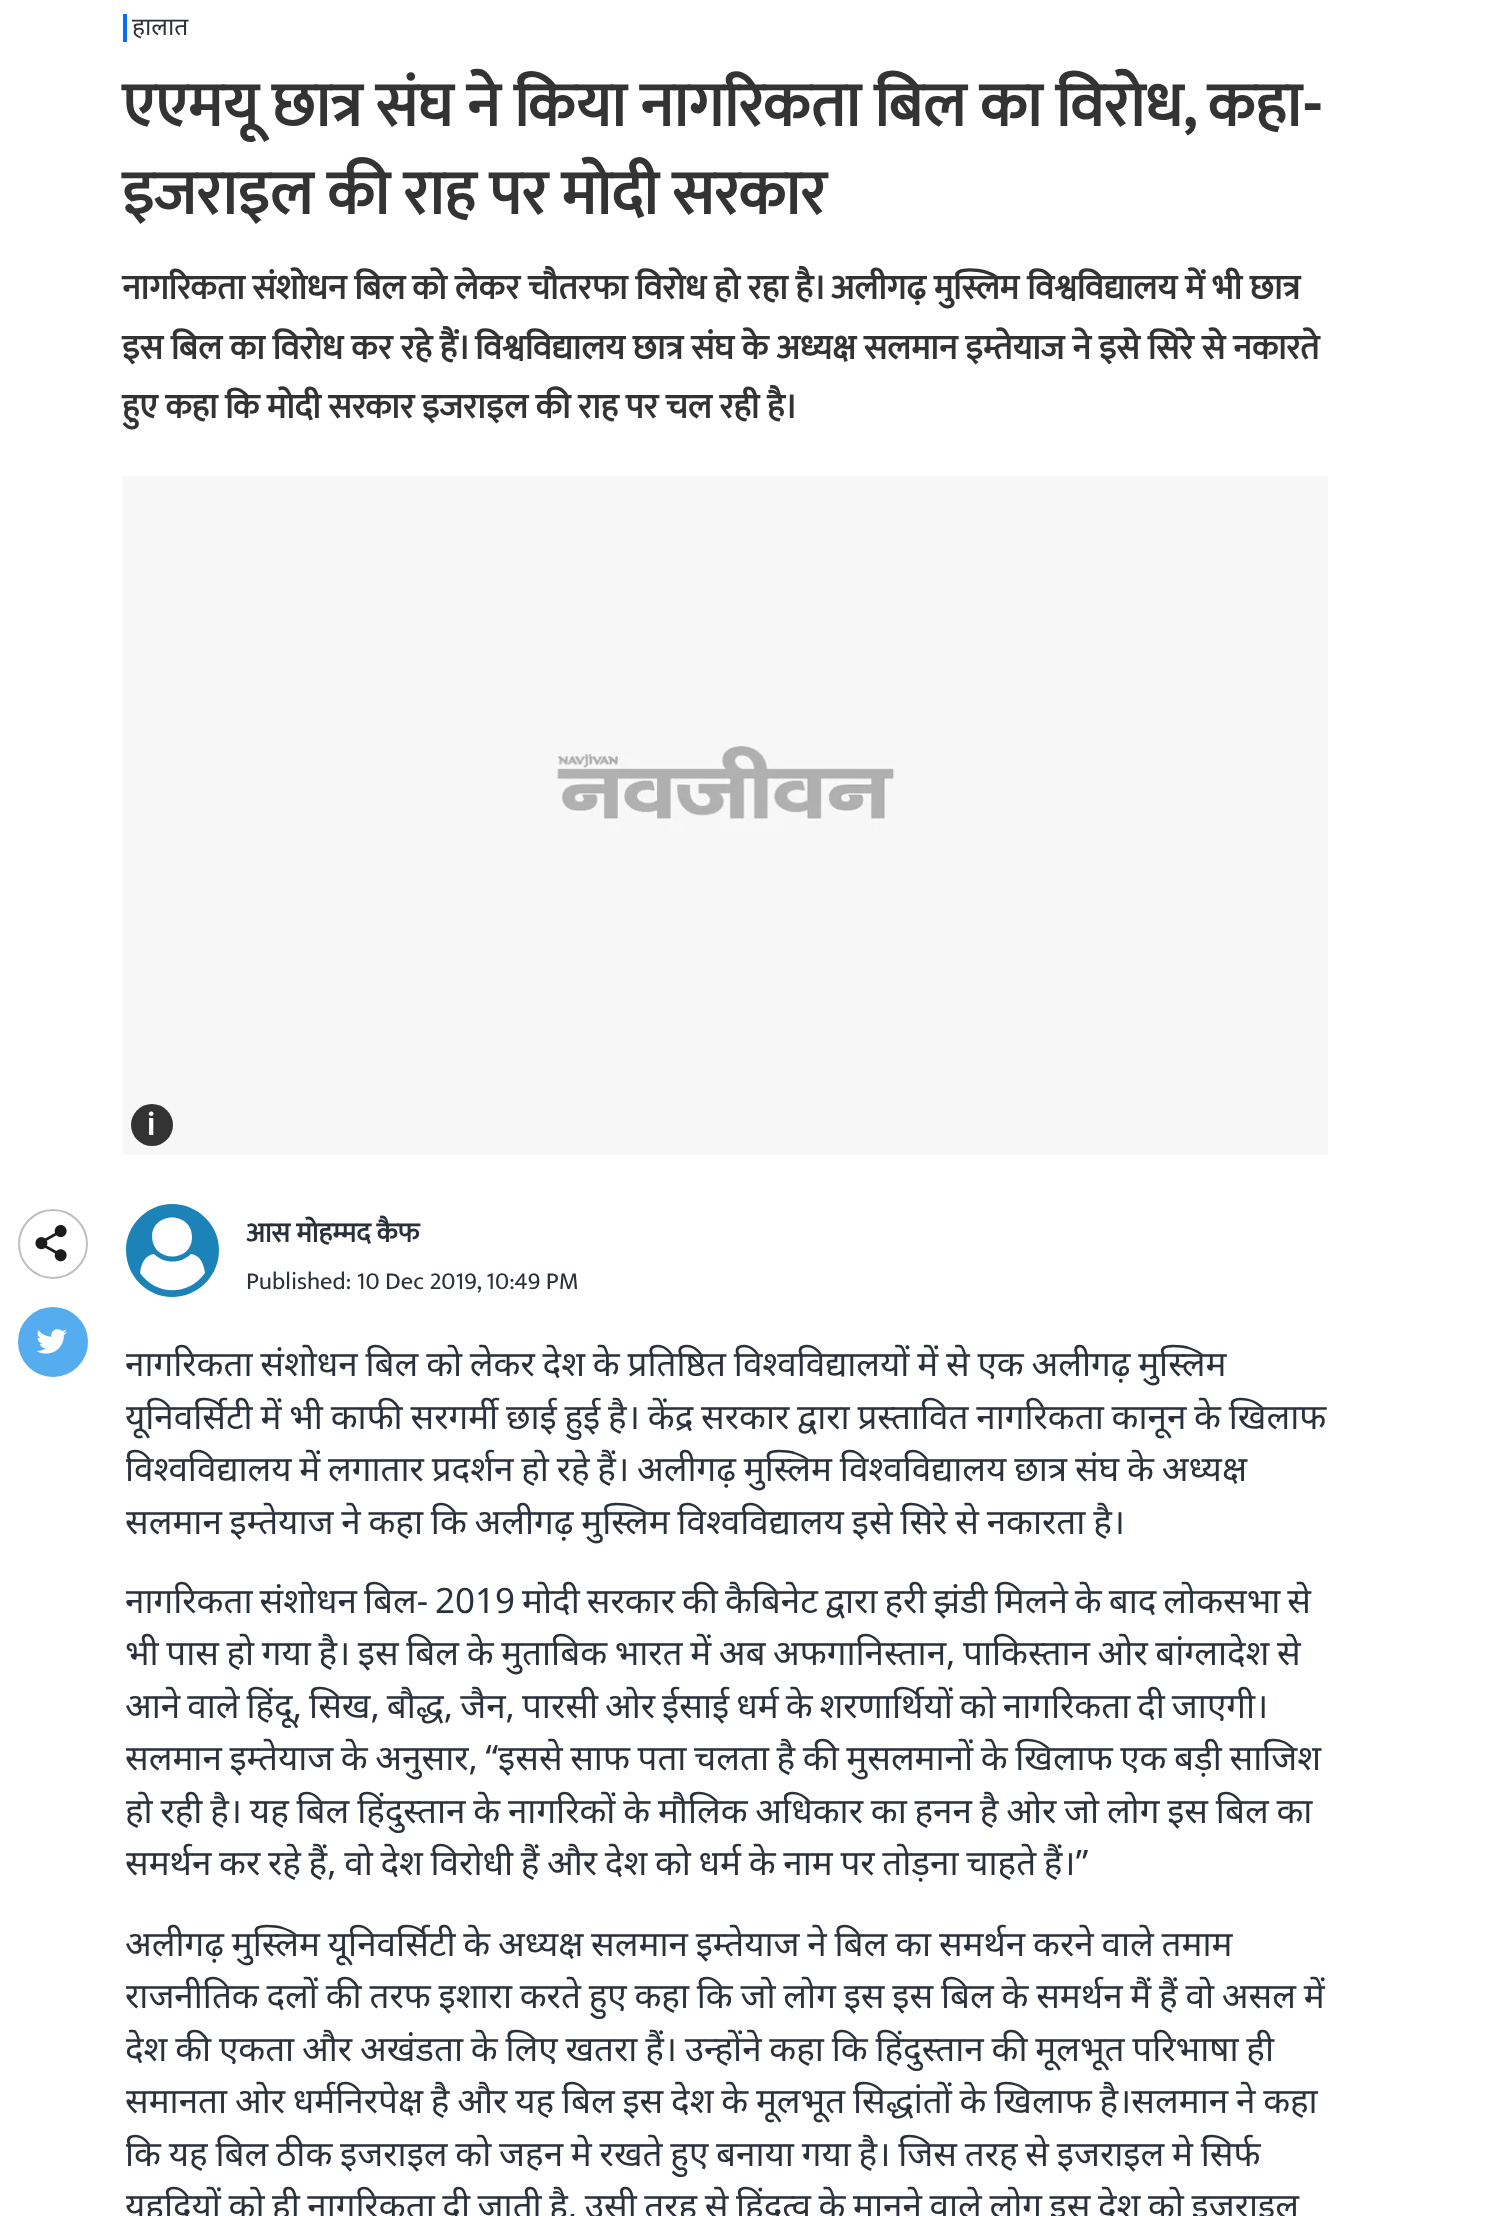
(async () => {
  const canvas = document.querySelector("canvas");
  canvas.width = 1502;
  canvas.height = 2216;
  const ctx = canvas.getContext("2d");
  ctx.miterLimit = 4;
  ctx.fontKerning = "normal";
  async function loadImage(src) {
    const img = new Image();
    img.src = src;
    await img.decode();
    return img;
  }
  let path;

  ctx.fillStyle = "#ffffff";
  ctx.fillRect(0, 0, 1502, 2216);
  ctx.fillStyle = "#056ff7";
  ctx.fillRect(123, 14, 4, 28);
  ctx.drawImage(await loadImage("img/1.png"), 122, 476, 1206, 679);
  ctx.fillStyle = "#333333";
  ctx.beginPath();
  ctx.arc(152, 1125, 21, 0, Math.PI * 2);
  ctx.fill();
  ctx.beginPath();
  ctx.arc(53, 1244, 34, 0, Math.PI * 2);
  ctx.strokeStyle = "#bfbfbf";
  ctx.lineWidth = 2;
  ctx.stroke();
  ctx.drawImage(await loadImage("img/2.png"), 35, 1225, 32, 37);
  ctx.fillStyle = "#55acee";
  ctx.beginPath();
  ctx.arc(53, 1342, 34, 0, Math.PI * 2);
  ctx.fill();
  ctx.strokeStyle = "#55acee";
  ctx.stroke();
  ctx.drawImage(await loadImage("img/3.png"), 36, 1329, 31, 25);
  ctx.fillStyle = "#1c83b9";
  path = new Path2D("M205 1273C204 1264 200 1255 191 1254C181 1264 164 1264 154 1254C145 1255 141 1264 140 1273C156 1296 189 1296 205 1273ZM192 1237C192 1211 152 1211 152 1237C153 1263 192 1263 192 1237ZM219 1250C219 1276 198 1297 172 1297C147 1297 126 1276 126 1250C126 1225 147 1204 172 1204C198 1204 219 1225 219 1250Z");
  ctx.fill(path);
  ctx.font = "24.5px Noto Sans";
  ctx.fillStyle = "#2a313b";
  ctx.fillText("हालात", 132, 35);
  ctx.wordSpacing = "-0.25px";
  ctx.font = "bold 63px Ek Mukta";
  ctx.fillStyle = "#333333";
  ctx.fillText("एएमयू छात्र संघ ने किया नागरिकता बिल का विरोध, कहा-", 122, 126);
  ctx.wordSpacing = "0px";
  ctx.fillText("इजराइल की राह पर मोदी सरकार", 122, 214);
  ctx.font = "bold 35px Ek Mukta";
  ctx.fillText("नागरिकता संशोधन बिल", 122, 299);
  ctx.wordSpacing = "0.3px";
  ctx.fillText("को लेकर चौतरफा विरोध हो रहा है। अलीगढ़ मुस्लिम विश्वविद्यालय में भी छात्र", 412, 299);
  ctx.wordSpacing = "0.25px";
  ctx.fillText("इस बिल का विरोध कर रहे हैं। विश्वविद्यालय छात्र संघ के अध्यक्ष सलमान इम्तेयाज ने इसे सिरे से नकारते", 122, 359);
  ctx.wordSpacing = "0px";
  ctx.fillText("हुए कहा कि मोदी सरकार इजराइल की राह पर चल रही है।", 122, 418);
  ctx.font = "600 32px Roboto";
  ctx.fillStyle = "#ffffff";
  ctx.fillText("i", 147, 1135);
  ctx.font = "bold 28px Ek Mukta";
  ctx.fillStyle = "#2a313b";
  ctx.fillText("आस मोहम्मद कैफ", 246, 1242);
  ctx.font = "24.5px Ek Mukta";
  ctx.fillText("Published: 10 Dec 2019, 10:49 PM", 246, 1289);
  ctx.save();
  ctx.beginPath();
  ctx.rect(126, 1190, 1202, 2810);
  ctx.clip();
  ctx.wordSpacing = "-1.3px";
  ctx.font = "35px Noto Sans";
  for (const [text, x, y] of [
    ["नागरिकता संशोधन बिल को लेकर देश के प्रतिष्ठित विश्वविद्यालयों में से एक अलीगढ़ मुस्लिम", 125, 1376],
    ["यूनिवर्सिटी में भी काफी सरगर्मी छाई हुई है। केंद्र सरकार द्वारा प्रस्तावित नागरिकता कानून के खिलाफ", 125, 1429],
    ["विश्वविद्यालय में लगातार प्रदर्शन हो रहे हैं। अलीगढ़ मुस्लिम विश्वविद्यालय छात्र संघ के अध्यक्ष", 125, 1481],
    ["सलमान इम्तेयाज ने कहा कि अलीगढ़ मुस्लिम विश्वविद्यालय इसे सिरे से नकारता है।", 125, 1534],
  ]) {
    ctx.fillText(text, x, y);
  }
  ctx.wordSpacing = "-2.1px";
  ctx.fillText("नागरिकता संशोधन बिल- 2019 मोदी सरकार की कैबिनेट द्वारा हरी झंडी मिलने के बाद लोकसभा से", 125, 1613);
  ctx.wordSpacing = "-1.5px";
  ctx.fillText("भी पास हो गया है। इस बिल के मुताबिक भारत में अब अफगानिस्तान, पाकिस्तान ओर बांग्लादेश से", 125, 1665);
  ctx.restore();
  ctx.wordSpacing = "-2.1px";
  ctx.font = "35px Noto Sans";
  ctx.fillText("आने वाले हिंदू, सिख, बौद्ध, जैन, पारसी ओर ईसाई धर्म के शरणार्थियों को नागरिकता दी जाएगी।", 125, 1718);
  ctx.save();
  ctx.beginPath();
  ctx.rect(126, 1190, 1202, 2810);
  ctx.clip();
  ctx.wordSpacing = "-1.5px";
  ctx.fillText("सलमान इम्तेयाज के अनुसार, “इससे साफ पता चलता है की मुसलमानों के खिलाफ एक बड़ी साजिश", 125, 1770);
  ctx.wordSpacing = "-1.3px";
  ctx.fillText("हो रही है। यह बिल हिंदुस्तान के नागरिकों के मौलिक अधिकार का हनन है ओर जो लोग इस बिल का", 125, 1823);
  ctx.wordSpacing = "-1.4px";
  ctx.fillText("समर्थन कर रहे हैं, वो देश विरोधी हैं और देश को धर्म के नाम पर तोड़ना चाहते हैं।”", 125, 1875);
  ctx.restore();
  ctx.wordSpacing = "-1.3px";
  ctx.fillText("अलीगढ़ मुस्लिम यूनिवर्सिटी के अध्यक्ष सलमान इम्तेयाज ने बिल का समर्थन करने वाले तमाम", 125, 1956);
  ctx.save();
  ctx.beginPath();
  ctx.rect(126, 1190, 1202, 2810);
  ctx.clip();
  for (const [text, x, y] of [
    ["राजनीतिक दलों की तरफ इशारा करते हुए कहा कि जो लोग इस इस बिल के समर्थन मैं हैं वो असल में", 125, 2008],
    ["देश की एकता और अखंडता के लिए खतरा हैं। उन्होंने कहा कि हिंदुस्तान की मूलभूत परिभाषा ही", 125, 2061],
    ["समानता ओर धर्मनिरपेक्ष है और यह बिल इस देश के मूलभूत सिद्धांतों के खिलाफ है।सलमान ने कहा", 125, 2113],
    ["कि यह बिल ठीक इजराइल को जहन मे रखते हुए बनाया गया है। जिस तरह से इजराइल मे सिर्फ", 125, 2166],
  ]) {
    ctx.fillText(text, x, y);
  }
  ctx.wordSpacing = "-1.5px";
  ctx.fillText("यहूदियों को ही नागरिकता दी जाती है, उसी तरह से हिंदुत्व के मानने वाले लोग इस देश को इजराइल", 125, 2218);
  ctx.restore();
})();
